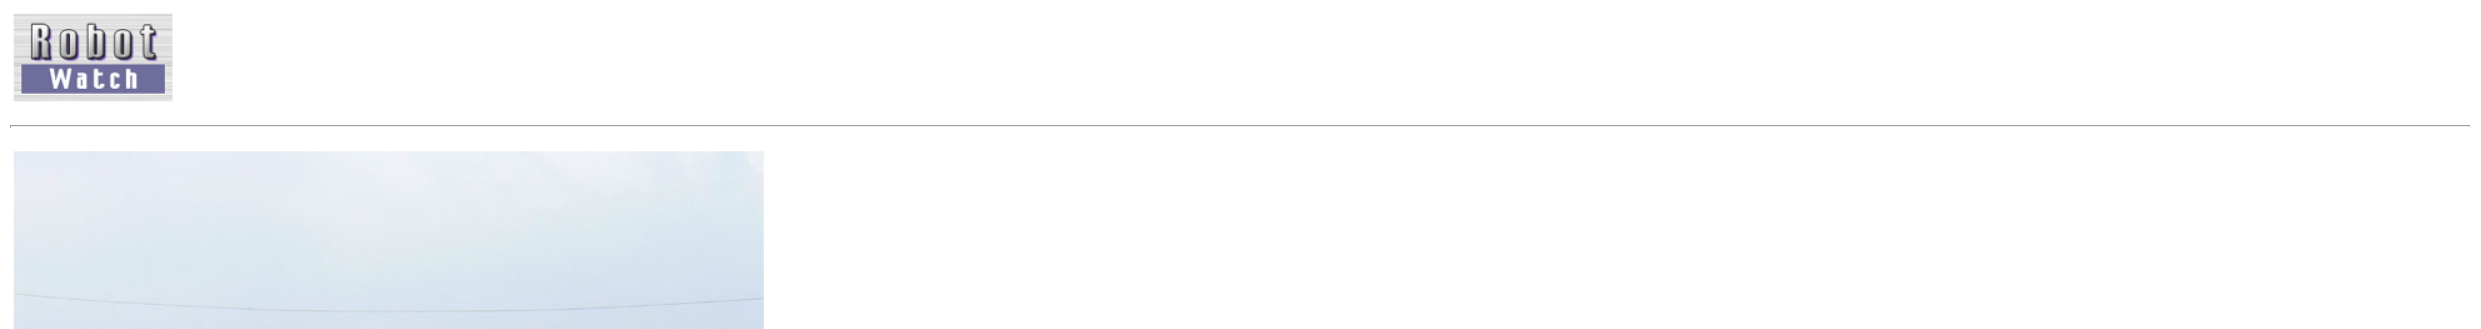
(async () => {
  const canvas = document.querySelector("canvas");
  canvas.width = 2481;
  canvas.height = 329;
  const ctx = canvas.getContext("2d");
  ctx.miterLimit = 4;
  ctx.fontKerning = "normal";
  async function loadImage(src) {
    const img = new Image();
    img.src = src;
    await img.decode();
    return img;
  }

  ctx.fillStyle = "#ffffff";
  ctx.fillRect(0, 0, 2481, 329);
  ctx.drawImage(await loadImage("img/1.png"), 13, 13, 160, 89);
  for (const [x, y, w, h, color] of [
    [10, 125, 2461, 1, "#9f9f9f"],
    [2470, 125, 1, 3, "#eeeeee"],
    [10, 126, 2461, 1, "#eeeeee"],
    [10, 125, 1, 3, "#9f9f9f"],
  ]) {
    ctx.fillStyle = color;
    ctx.fillRect(x, y, w, h);
  }
  ctx.drawImage(await loadImage("img/2.png"), 13, 151, 751, 178);
})();
